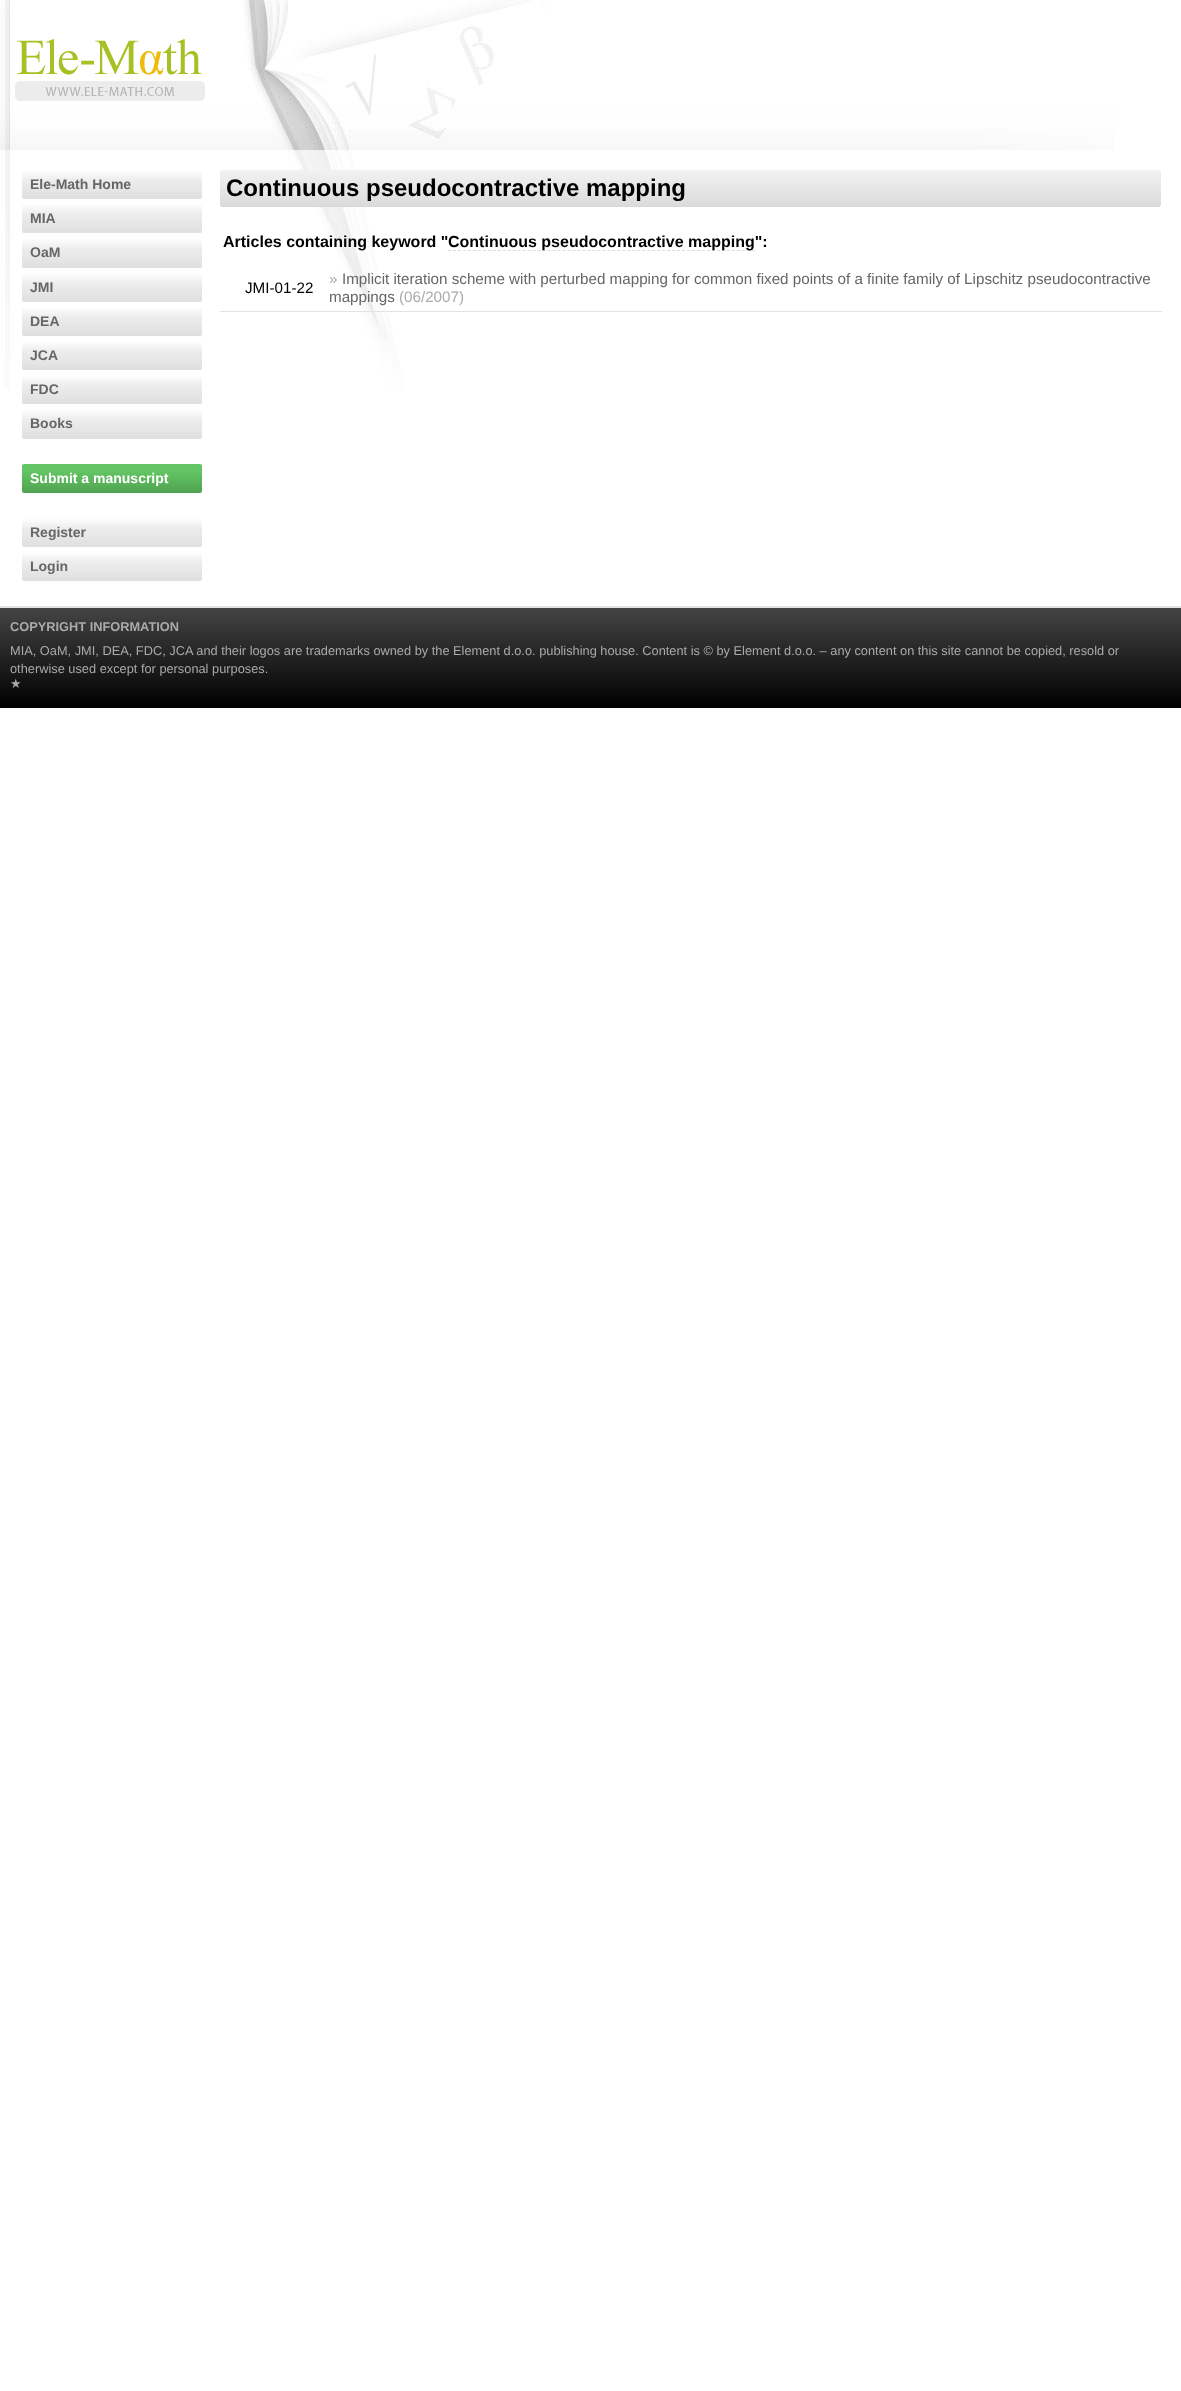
(async () => {
  const canvas = document.querySelector("canvas");
  canvas.width = 1181;
  canvas.height = 2391;
  const ctx = canvas.getContext("2d");
  ctx.miterLimit = 4;
  ctx.fontKerning = "normal";
  async function loadImage(src) {
    const img = new Image();
    img.src = src;
    await img.decode();
    return img;
  }
  let gradient, path;

  ctx.fillStyle = "#ffffff";
  ctx.fillRect(0, 0, 1181, 2391);
  ctx.drawImage(await loadImage("img/1.png"), 0, 0, 1115, 389);
  ctx.drawImage(await loadImage("img/2.png"), 15, 39, 190, 62);
  gradient = ctx.createLinearGradient(112, 170, 112, 199);
  gradient.addColorStop(0, "#ffffff");
  gradient.addColorStop(0.35, "#ededed");
  gradient.addColorStop(1, "#dfdfdf");
  ctx.fillStyle = gradient;
  ctx.beginPath();
  ctx.roundRect(22, 170, 180, 29, 2);
  ctx.fill();
  gradient = ctx.createLinearGradient(112, 204, 112, 233);
  gradient.addColorStop(0, "#ffffff");
  gradient.addColorStop(0.35, "#ededed");
  gradient.addColorStop(1, "#dfdfdf");
  ctx.fillStyle = gradient;
  ctx.beginPath();
  ctx.roundRect(22, 204, 180, 29, 2);
  ctx.fill();
  gradient = ctx.createLinearGradient(112, 238, 112, 268);
  gradient.addColorStop(0, "#ffffff");
  gradient.addColorStop(0.35, "#ededed");
  gradient.addColorStop(1, "#dfdfdf");
  ctx.fillStyle = gradient;
  ctx.beginPath();
  ctx.roundRect(22, 238, 180, 30, 2);
  ctx.fill();
  gradient = ctx.createLinearGradient(112, 273, 112, 302);
  gradient.addColorStop(0, "#ffffff");
  gradient.addColorStop(0.35, "#ededed");
  gradient.addColorStop(1, "#dfdfdf");
  ctx.fillStyle = gradient;
  ctx.beginPath();
  ctx.roundRect(22, 273, 180, 29, 2);
  ctx.fill();
  gradient = ctx.createLinearGradient(112, 307, 112, 336);
  gradient.addColorStop(0, "#ffffff");
  gradient.addColorStop(0.35, "#ededed");
  gradient.addColorStop(1, "#dfdfdf");
  ctx.fillStyle = gradient;
  ctx.beginPath();
  ctx.roundRect(22, 307, 180, 29, 2);
  ctx.fill();
  gradient = ctx.createLinearGradient(112, 341, 112, 370);
  gradient.addColorStop(0, "#ffffff");
  gradient.addColorStop(0.35, "#ededed");
  gradient.addColorStop(1, "#dfdfdf");
  ctx.fillStyle = gradient;
  ctx.beginPath();
  ctx.roundRect(22, 341, 180, 29, 2);
  ctx.fill();
  gradient = ctx.createLinearGradient(112, 375, 112, 404);
  gradient.addColorStop(0, "#ffffff");
  gradient.addColorStop(0.35, "#ededed");
  gradient.addColorStop(1, "#dfdfdf");
  ctx.fillStyle = gradient;
  ctx.beginPath();
  ctx.roundRect(22, 375, 180, 29, 2);
  ctx.fill();
  gradient = ctx.createLinearGradient(112, 409, 112, 439);
  gradient.addColorStop(0, "#ffffff");
  gradient.addColorStop(0.35, "#ededed");
  gradient.addColorStop(1, "#dfdfdf");
  ctx.fillStyle = gradient;
  ctx.beginPath();
  ctx.roundRect(22, 409, 180, 30, 2);
  ctx.fill();
  gradient = ctx.createLinearGradient(112, 464, 112, 493);
  gradient.addColorStop(0, "#62c462");
  gradient.addColorStop(0.25, "#62c462");
  gradient.addColorStop(1, "#51a351");
  ctx.fillStyle = gradient;
  ctx.beginPath();
  ctx.roundRect(22, 464, 180, 29, 2);
  ctx.fill();
  gradient = ctx.createLinearGradient(112, 518, 112, 547);
  gradient.addColorStop(0, "#ffffff");
  gradient.addColorStop(0.35, "#ededed");
  gradient.addColorStop(1, "#dfdfdf");
  ctx.fillStyle = gradient;
  ctx.beginPath();
  ctx.roundRect(22, 518, 180, 29, 2);
  ctx.fill();
  gradient = ctx.createLinearGradient(112, 552, 112, 581);
  gradient.addColorStop(0, "#ffffff");
  gradient.addColorStop(0.35, "#ededed");
  gradient.addColorStop(1, "#dfdfdf");
  ctx.fillStyle = gradient;
  ctx.beginPath();
  ctx.roundRect(22, 552, 180, 29, 2);
  ctx.fill();
  ctx.save();
  ctx.beginPath();
  ctx.roundRect(220, 170, 941, 37, 2);
  ctx.clip();
  gradient = ctx.createLinearGradient(691, 170, 691, 206);
  gradient.addColorStop(0, "#f2f2f2");
  gradient.addColorStop(1, "#dbdbdb");
  ctx.fillStyle = gradient;
  ctx.beginPath();
  ctx.roundRect(220, 170, 941, 36, [2, 2, 0, 0]);
  ctx.fill();
  ctx.restore();
  ctx.fillStyle = "#d7d7d7";
  ctx.fillRect(221, 206, 939, 1);
  path = new Path2D("M448 250.5H755");
  ctx.strokeStyle = "#dcdcdc";
  ctx.setLineDash([3, 1.98]);
  ctx.stroke(path);
  ctx.fillStyle = "#e3e3e3";
  ctx.fillRect(220, 311, 942, 1);
  gradient = ctx.createLinearGradient(591, 608, 591, 708);
  gradient.addColorStop(0, "#444444");
  gradient.addColorStop(1, "#000000");
  ctx.fillStyle = gradient;
  ctx.fillRect(0, 608, 1181, 100);
  ctx.fillStyle = "#e3e3e3";
  ctx.fillRect(0, 606, 1181, 2);
  ctx.font = "bold 14px Liberation Sans";
  ctx.fillStyle = "#666666";
  for (const [text, x, y] of [
    ["Ele-Math Home", 30, 189],
    ["MIA", 30, 223],
    ["OaM", 30, 257],
    ["JMI", 30, 292],
    ["DEA", 30, 326],
    ["JCA", 30, 360],
    ["FDC", 30, 394],
    ["Books", 30, 428],
  ]) {
    ctx.fillText(text, x, y);
  }
  ctx.fillStyle = "#ffffff";
  ctx.fillText("Submit a manuscript", 30, 483);
  ctx.fillStyle = "#666666";
  ctx.fillText("Register", 30, 537);
  ctx.fillText("Login", 30, 571);
  ctx.font = "bold 24px Liberation Sans";
  ctx.fillStyle = "#000000";
  ctx.fillText("Continuous pseudocontractive mapping", 226, 196);
  ctx.font = "bold 16px Liberation Sans";
  ctx.fillText("Articles containing keyword \"", 223, 247);
  ctx.fillText("Continuous pseudocontractive mapping\":", 448, 247);
  ctx.font = "15.2px Liberation Sans";
  ctx.fillText("JMI-01-22", 245, 293);
  ctx.fillStyle = "#aaaaaa";
  ctx.fillText("»", 329, 284);
  ctx.fillStyle = "#666666";
  ctx.fillText("Implicit iteration scheme with perturbed mapping for common fixed points of a finite family of Lipschitz pseudocontractive", 342, 284);
  ctx.fillText("mappings", 329, 302);
  ctx.fillStyle = "#aaaaaa";
  ctx.fillText("(06/2007)", 399, 302);
  ctx.font = "bold 12.8px Liberation Sans";
  ctx.fillText("COPYRIGHT INFORMATION", 10, 631);
  ctx.font = "12.8px Liberation Sans";
  ctx.fillText("MIA, OaM, JMI, DEA, FDC, JCA and their logos are trademarks owned by the Element d.o.o. publishing house. Content is © by Element d.o.o. – any content on this site cannot be copied, resold or", 10, 655);
  ctx.fillText("otherwise used except for personal purposes.", 10, 673);
  ctx.font = "12.8px DejaVu Sans";
  ctx.fillText("★", 10, 688);
})();
